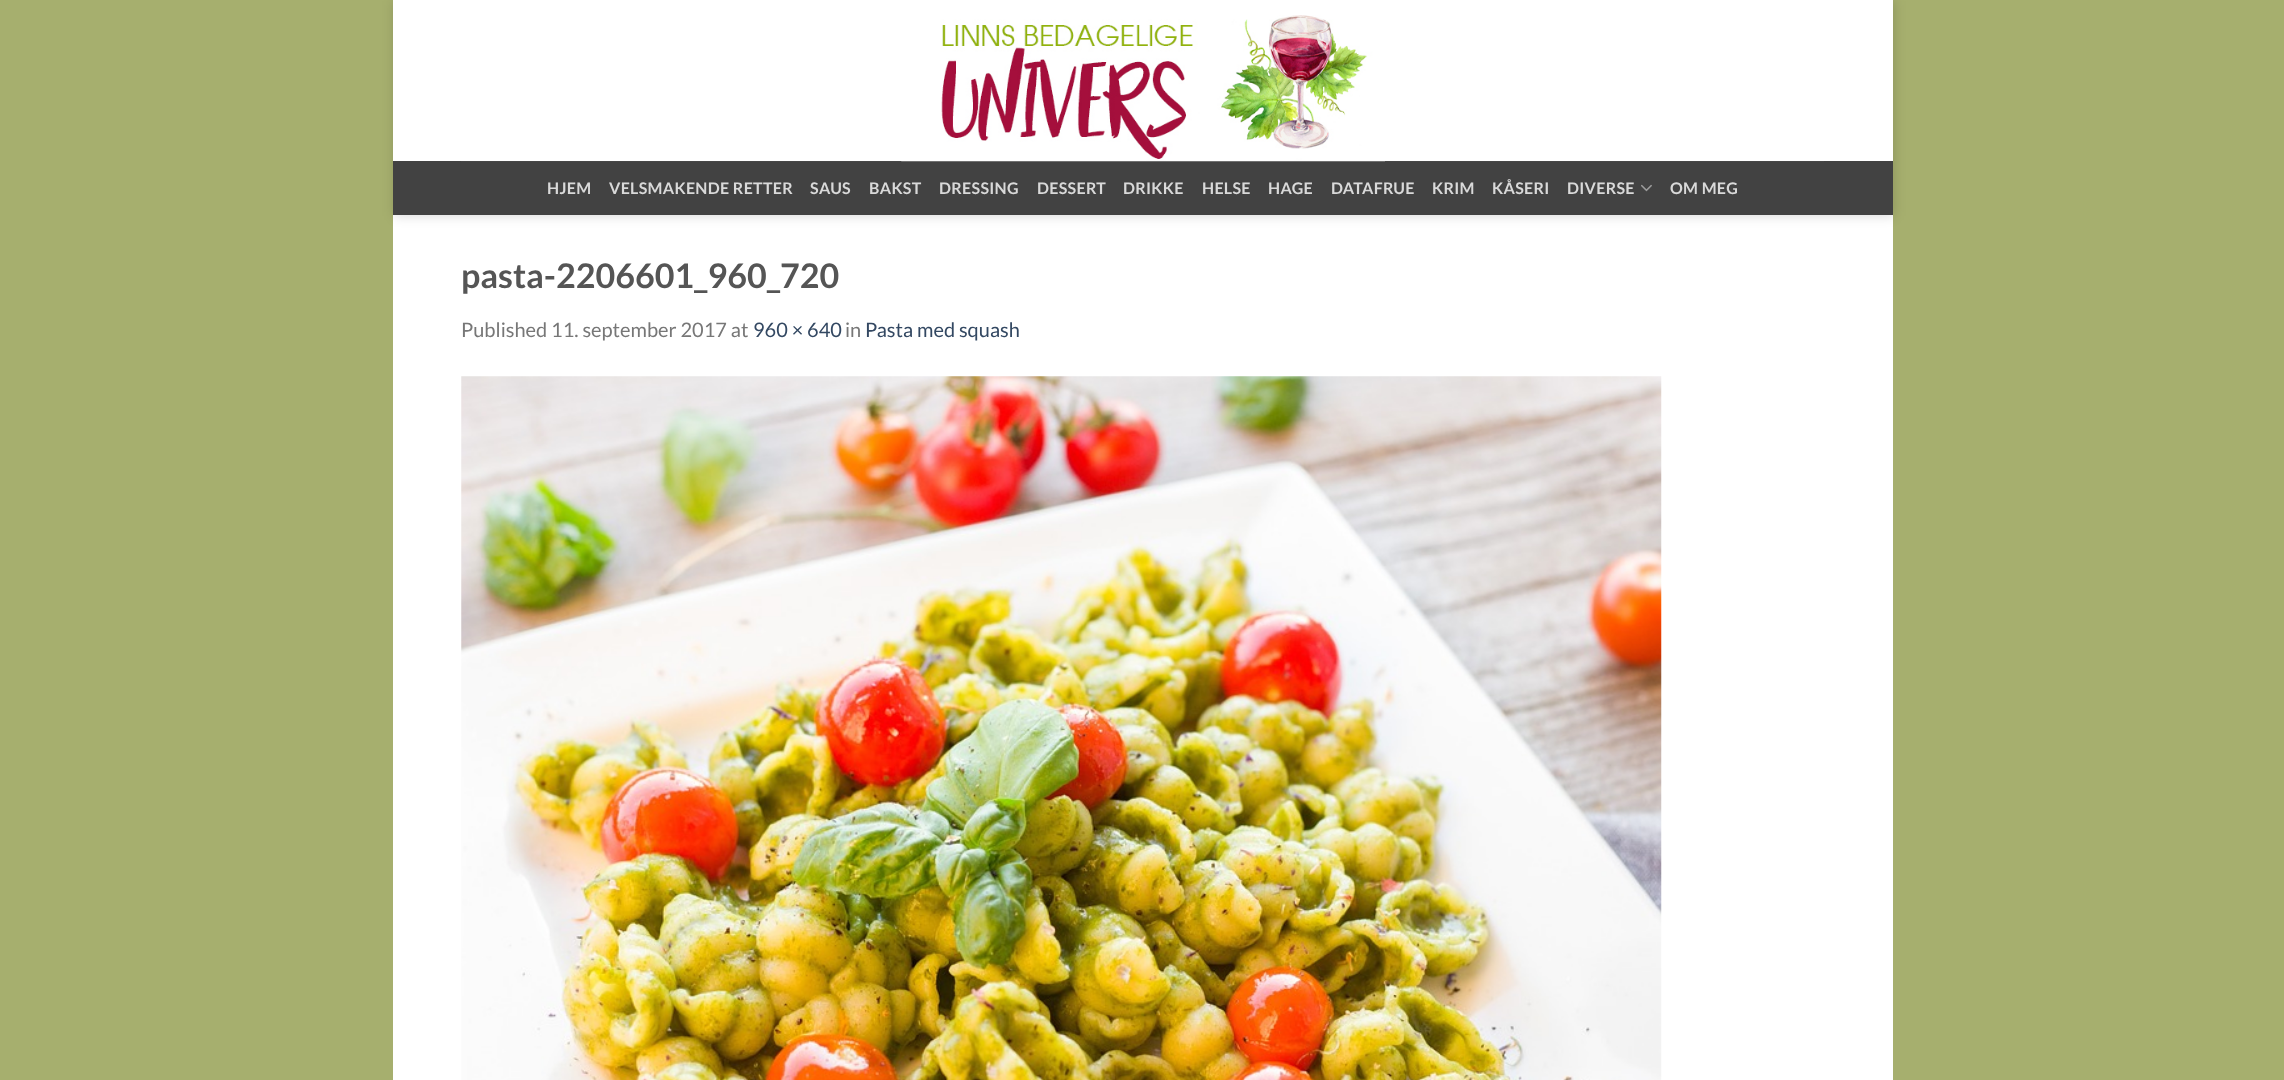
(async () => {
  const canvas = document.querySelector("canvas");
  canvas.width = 2284;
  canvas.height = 1080;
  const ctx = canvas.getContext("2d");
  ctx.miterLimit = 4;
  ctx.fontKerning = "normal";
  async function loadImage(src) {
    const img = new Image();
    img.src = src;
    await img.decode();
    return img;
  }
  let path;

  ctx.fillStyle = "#a6af6e";
  ctx.fillRect(0, 0, 2284, 1080);
  ctx.fillStyle = "#ffffff";
  ctx.fillRect(393, 0, 1500, 1080);
  ctx.save();
  path = new Path2D("M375 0H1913V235H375ZM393 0H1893V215H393Z");
  ctx.clip(path, "evenodd");
  ctx.fillStyle = "rgba(0, 0, 0, 0.15)";
  ctx.filter = "blur(6px)";
  ctx.beginPath();
  ctx.rect(394, 1, 1500, 215);
  ctx.fill();
  ctx.filter = "none";
  ctx.restore();
  ctx.fillStyle = "#424242";
  ctx.fillRect(393, 161, 1500, 54);
  ctx.drawImage(await loadImage("img/1.png"), 901, 15, 484, 147);
  ctx.fillStyle = "rgba(119, 119, 119, 0.1)";
  ctx.fillRect(461, 161, 1363, 1);
  ctx.drawImage(await loadImage("img/2.png"), 1641, 184, 11, 8);
  ctx.drawImage(await loadImage("img/3.png"), 461, 376, 1201, 704);
  ctx.letterSpacing = "0.3px";
  ctx.font = "bold 16px Lato";
  ctx.fillStyle = "#d9d9d9";
  for (const [text, x, y] of [
    ["HJEM", 547, 194],
    ["VELSMAKENDE RETTER", 609, 194],
    ["SAUS", 810, 194],
    ["BAKST", 869, 194],
    ["DRESSING", 939, 194],
    ["DESSERT", 1037, 194],
    ["DRIKKE", 1123, 194],
    ["HELSE", 1202, 194],
    ["HAGE", 1268, 194],
    ["DATAFRUE", 1331, 194],
    ["KRIM", 1432, 194],
    ["KÅSERI", 1492, 194],
    ["DIVERSE", 1567, 194],
    ["OM MEG", 1670, 194],
  ]) {
    ctx.fillText(text, x, y);
  }
  ctx.letterSpacing = "0px";
  ctx.font = "bold 34px Lato";
  ctx.fillStyle = "#555555";
  ctx.fillText("pasta-2206601_960_720", 461, 288);
  ctx.font = "20px Lato";
  ctx.fillStyle = "#777777";
  ctx.fillText("Published 11. september 2017 at", 461, 337);
  ctx.fillStyle = "#334862";
  ctx.fillText("960 × 640", 753, 337);
  ctx.fillStyle = "#777777";
  ctx.fillText("in", 845, 337);
  ctx.fillStyle = "#334862";
  ctx.fillText("Pasta med squash", 865, 337);
})();
